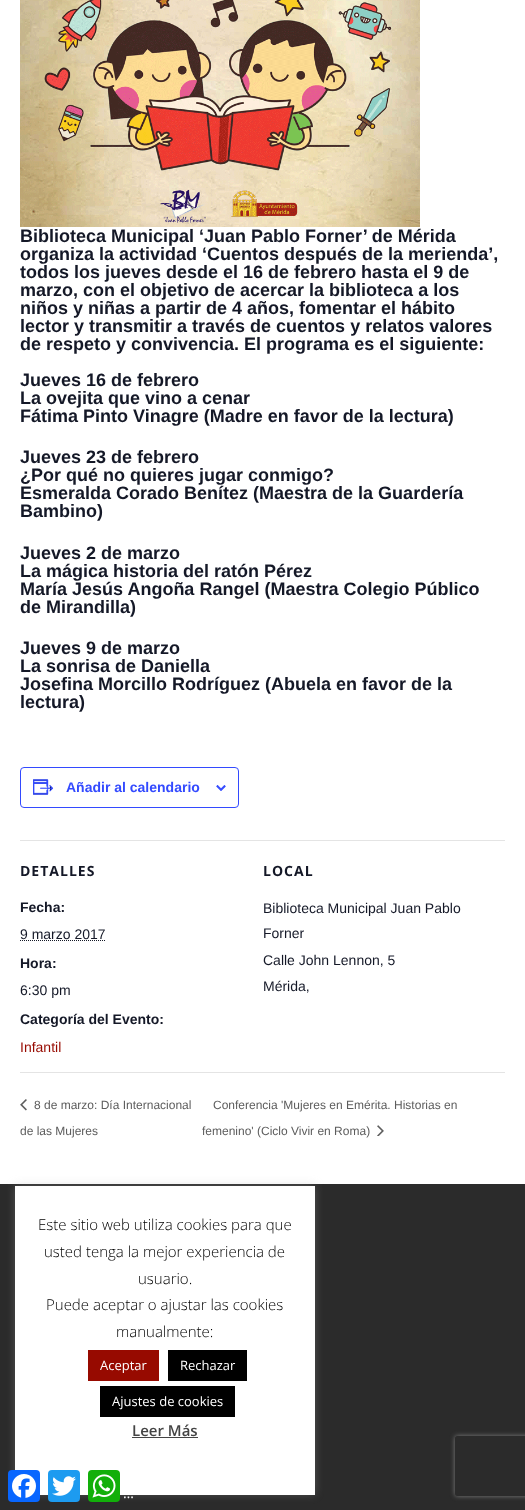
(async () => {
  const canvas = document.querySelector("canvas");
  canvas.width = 525;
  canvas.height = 1510;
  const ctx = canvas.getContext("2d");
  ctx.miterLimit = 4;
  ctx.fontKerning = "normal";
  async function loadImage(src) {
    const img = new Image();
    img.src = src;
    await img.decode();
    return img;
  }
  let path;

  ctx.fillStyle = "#ffffff";
  ctx.fillRect(0, 0, 525, 1510);
  ctx.drawImage(await loadImage("img/1.png"), 20, 0, 400, 227);
  ctx.beginPath();
  ctx.roundRect(20.5, 767.5, 218, 40, 3.5);
  ctx.strokeStyle = "#334aff";
  ctx.stroke();
  ctx.drawImage(await loadImage("img/2.png"), 33, 779, 21, 16);
  ctx.drawImage(await loadImage("img/3.png"), 216, 785, 10, 6);
  ctx.fillStyle = "#e4e4e4";
  ctx.fillRect(20, 840, 485, 1);
  path = new Path2D("M20 940.5H105.5");
  ctx.strokeStyle = "#141827";
  ctx.setLineDash([1, 1]);
  ctx.stroke(path);
  ctx.fillRect(20, 1072, 485, 1);
  ctx.drawImage(await loadImage("img/4.png"), 20, 1099, 7, 12);
  ctx.drawImage(await loadImage("img/5.png"), 377, 1125, 7, 11);
  ctx.fillStyle = "#2b2b2b";
  ctx.fillRect(0, 1184, 525, 326);
  ctx.fillStyle = "rgba(172, 171, 171, 0.3)";
  ctx.filter = "blur(5px)";
  ctx.beginPath();
  ctx.rect(15, 1185, 300, 309);
  ctx.fill();
  ctx.filter = "none";
  for (const [x, y, w, h, color] of [
    [15, 1186, 300, 309, "#ffffff"],
    [88, 1350, 71, 31, "#970a00"],
    [168, 1350, 79, 31, "#000000"],
    [100, 1386, 135, 31, "#000000"],
    [132, 1437, 66, 1, "#444444"],
  ]) {
    ctx.fillStyle = color;
    ctx.fillRect(x, y, w, h);
  }
  ctx.fillStyle = "#0866ff";
  ctx.beginPath();
  ctx.roundRect(8, 1470, 32, 32, 4);
  ctx.fill();
  ctx.drawImage(await loadImage("img/6.png"), 12, 1474, 24, 24);
  ctx.fillStyle = "#1d9bf0";
  ctx.beginPath();
  ctx.roundRect(48, 1470, 32, 32, 4);
  ctx.fill();
  ctx.drawImage(await loadImage("img/7.png"), 52, 1476, 24, 20);
  ctx.fillStyle = "#12af0a";
  ctx.beginPath();
  ctx.roundRect(88, 1470, 32, 32, 4);
  ctx.fill();
  ctx.drawImage(await loadImage("img/8.png"), 92, 1474, 24, 24);
  ctx.save();
  path = new Path2D("M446 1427H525V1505H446ZM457 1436H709C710 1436 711 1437 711 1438V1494C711 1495 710 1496 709 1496H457C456 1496 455 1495 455 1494V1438C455 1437 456 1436 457 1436Z");
  ctx.clip(path, "evenodd");
  ctx.fillStyle = "#808080";
  ctx.filter = "blur(2.5px)";
  ctx.beginPath();
  ctx.roundRect(455, 1436, 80, 60, 2);
  ctx.fill();
  ctx.filter = "none";
  ctx.restore();
  ctx.font = "bold 18px Liberation Sans";
  ctx.fillStyle = "#141827";
  for (const [text, x, y] of [
    ["Biblioteca Municipal ‘Juan Pablo Forner’ de Mérida", 20, 242],
    ["organiza la actividad ‘Cuentos después de la merienda’,", 20, 260],
    ["todos los jueves desde el 16 de febrero hasta el 9 de", 20, 278],
    ["marzo, con el objetivo de acercar la biblioteca a los", 20, 296],
    ["niños y niñas a partir de 4 años, fomentar el hábito", 20, 314],
    ["lector y transmitir a través de cuentos y relatos valores", 20, 332],
    ["de respeto y convivencia. El programa es el siguiente:", 20, 350],
    ["Jueves 16 de febrero", 20, 386],
    ["La ovejita que vino a cenar", 20, 404],
    ["Fátima Pinto Vinagre (Madre en favor de la lectura)", 20, 422],
    ["Jueves 23 de febrero", 20, 463],
    ["¿Por qué no quieres jugar conmigo?", 20, 481],
    ["Esmeralda Corado Benítez (Maestra de la Guardería", 20, 499],
    ["Bambino)", 20, 517],
    ["Jueves 2 de marzo", 20, 559],
    ["La mágica historia del ratón Pérez", 20, 577],
    ["María Jesús Angoña Rangel (Maestra Colegio Público", 20, 595],
    ["de Mirandilla)", 20, 613],
    ["Jueves 9 de marzo", 20, 654],
    ["La sonrisa de Daniella", 20, 672],
    ["Josefina Morcillo Rodríguez (Abuela en favor de la", 20, 690],
    ["lectura)", 20, 708],
  ]) {
    ctx.fillText(text, x, y);
  }
  ctx.font = "bold 14px Liberation Sans";
  ctx.fillStyle = "#334aff";
  ctx.fillText("Añadir al calendario", 66, 792);
  ctx.letterSpacing = "1px";
  ctx.font = "bold 14px Open Sans";
  ctx.fillStyle = "#141827";
  ctx.fillText("DETALLES", 20, 876);
  ctx.letterSpacing = "0px";
  ctx.font = "bold 14px Liberation Sans";
  ctx.fillText("Fecha:", 20, 912);
  ctx.font = "14px Liberation Sans";
  ctx.fillText("9 marzo 2017", 20, 939);
  ctx.font = "bold 14px Liberation Sans";
  ctx.fillText("Hora:", 20, 968);
  ctx.font = "14px Liberation Sans";
  ctx.fillText("6:30 pm", 20, 995);
  ctx.font = "bold 14px Liberation Sans";
  ctx.fillText("Categoría del Evento:", 20, 1024);
  ctx.font = "14px Liberation Sans";
  ctx.fillStyle = "#970a00";
  ctx.fillText("Infantil", 20, 1052);
  ctx.letterSpacing = "1px";
  ctx.font = "bold 14px Open Sans";
  ctx.fillStyle = "#141827";
  ctx.fillText("LOCAL", 263, 876);
  ctx.letterSpacing = "0px";
  ctx.font = "14px Liberation Sans";
  for (const [text, x, y] of [
    ["Biblioteca Municipal Juan Pablo", 263, 913],
    ["Forner", 263, 938],
    ["Calle John Lennon, 5", 263, 965],
    ["Mérida,", 263, 991],
  ]) {
    ctx.fillText(text, x, y);
  }
  ctx.font = "12px Liberation Sans";
  ctx.fillStyle = "#5d5d5d";
  for (const [text, x, y] of [
    ["8 de marzo: Día Internacional", 34, 1109],
    ["de las Mujeres", 20, 1135],
    ["Conferencia 'Mujeres en Emérita. Historias en", 213, 1109],
    ["femenino' (Ciclo Vivir en Roma)", 202, 1135],
  ]) {
    ctx.fillText(text, x, y);
  }
  ctx.font = "14px Open Sans";
  ctx.fillStyle = "#ffffff";
  ctx.fillText("…", 123, 1498);
  ctx.font = "300 15px Open Sans";
  ctx.fillStyle = "#000000";
  for (const [text, x, y] of [
    ["Este sitio web utiliza cookies para que", 38, 1230],
    ["usted tenga la mejor experiencia de", 44, 1257],
    ["usuario.", 138, 1284],
    ["Puede aceptar o ajustar las cookies", 46, 1310],
    ["manualmente:", 116, 1337],
  ]) {
    ctx.fillText(text, x, y);
  }
  ctx.font = "13px Open Sans";
  ctx.fillStyle = "#ffffff";
  for (const [text, x, y] of [
    ["Aceptar", 100, 1370],
    ["Rechazar", 180, 1370],
    ["Ajustes de cookies", 112, 1406],
  ]) {
    ctx.fillText(text, x, y);
  }
  ctx.font = "600 15px Open Sans";
  ctx.fillStyle = "#444444";
  ctx.fillText("Leer Más", 132, 1436);
})();
